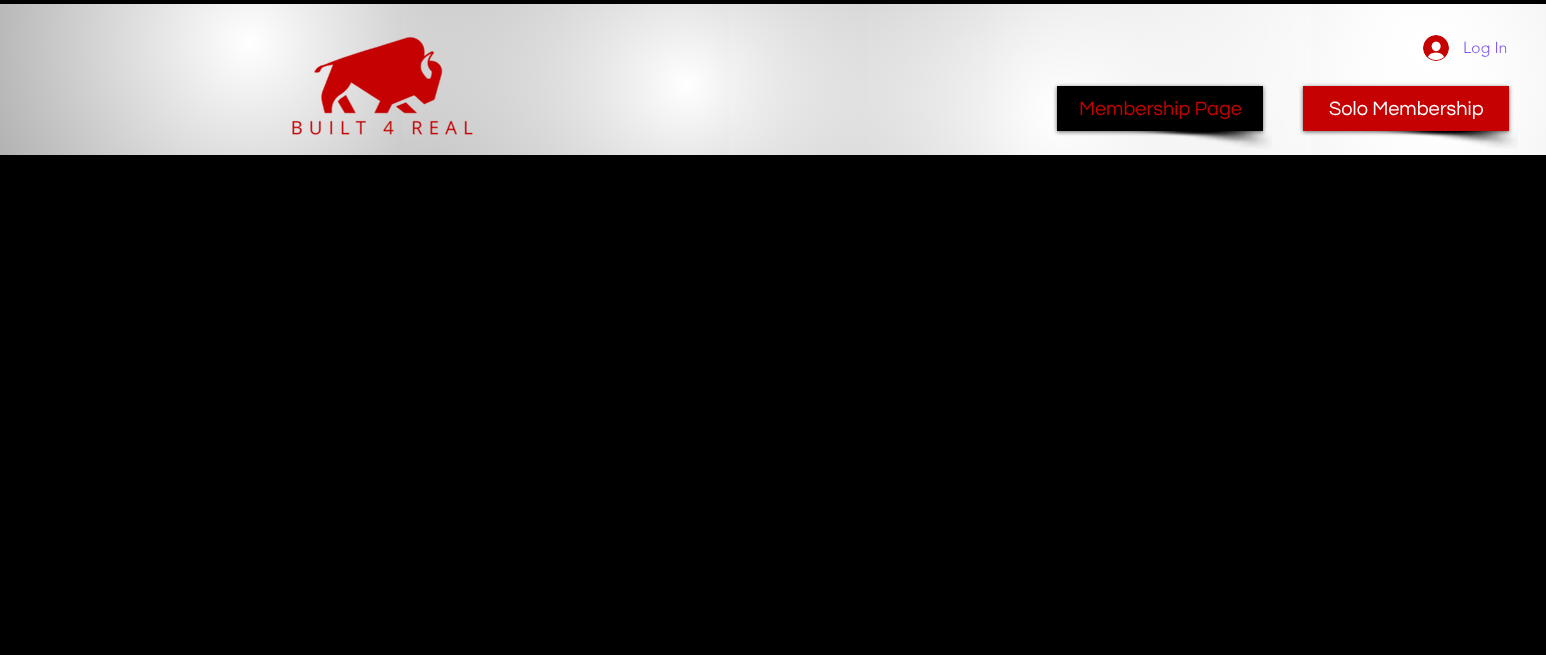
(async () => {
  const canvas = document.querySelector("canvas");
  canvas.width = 1546;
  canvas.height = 655;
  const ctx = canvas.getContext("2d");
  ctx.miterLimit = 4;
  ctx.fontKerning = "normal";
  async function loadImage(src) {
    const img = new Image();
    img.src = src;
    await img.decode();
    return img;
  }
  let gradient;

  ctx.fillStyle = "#000000";
  ctx.fillRect(0, 0, 1546, 655);
  gradient = ctx.createRadialGradient(1432, 114, 0, 1432, 114, 1436);
  gradient.addColorStop(0, "#ffffff");
  gradient.addColorStop(0.7, "#000000");
  ctx.fillStyle = gradient;
  ctx.fillRect(439, 4, 1107, 151);
  gradient = ctx.createRadialGradient(249, 43, 0, 249, 43, 1302);
  gradient.addColorStop(0, "#ffffff");
  gradient.addColorStop(0.7, "rgba(255, 255, 255, 0)");
  ctx.fillStyle = gradient;
  ctx.fillRect(0, 4, 1134, 151);
  gradient = ctx.createRadialGradient(1423, 46, 0, 1423, 46, 1427);
  gradient.addColorStop(0, "#ffffff");
  gradient.addColorStop(0.4, "rgba(255, 255, 255, 0)");
  ctx.fillStyle = gradient;
  ctx.fillRect(867, 4, 679, 151);
  gradient = ctx.createRadialGradient(687, 85, 0, 687, 85, 863);
  gradient.addColorStop(0, "#ffffff");
  gradient.addColorStop(0.35, "rgba(255, 255, 255, 0)");
  ctx.fillStyle = gradient;
  ctx.fillRect(402, 4, 576, 151);
  gradient = ctx.createRadialGradient(1059, 113, 0, 1059, 113, 1065);
  gradient.addColorStop(0, "#ffffff");
  gradient.addColorStop(0.35, "rgba(255, 255, 255, 0)");
  ctx.fillStyle = gradient;
  ctx.fillRect(729, 4, 582, 151);
  ctx.drawImage(await loadImage("img/1.png"), 292, 36, 181, 99);
  ctx.drawImage(await loadImage("img/2.png"), 1423, 35, 26, 26);
  ctx.drawImage(await loadImage("img/3.png"), 1118, 131, 154, 18);
  ctx.fillStyle = "rgba(0, 0, 0, 0.6)";
  ctx.filter = "blur(2px)";
  ctx.beginPath();
  ctx.rect(1057, 87, 206, 45);
  ctx.fill();
  ctx.filter = "none";
  ctx.fillStyle = "#000000";
  ctx.fillRect(1057, 86, 206, 45);
  ctx.drawImage(await loadImage("img/4.png"), 1364, 131, 154, 18);
  ctx.fillStyle = "rgba(0, 0, 0, 0.6)";
  ctx.filter = "blur(2px)";
  ctx.beginPath();
  ctx.rect(1303, 87, 206, 45);
  ctx.fill();
  ctx.filter = "none";
  ctx.fillStyle = "#c50101";
  ctx.fillRect(1303, 86, 206, 45);
  ctx.font = "300 16px 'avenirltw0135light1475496'";
  ctx.fillStyle = "#7e55f6";
  ctx.fillText("Log In", 1463, 53);
  ctx.font = "20px Questrial";
  ctx.fillStyle = "#c50101";
  ctx.fillText("Membership Page", 1079, 115);
  ctx.fillStyle = "#ffffff";
  ctx.fillText("Solo Membership", 1329, 115);
})();
